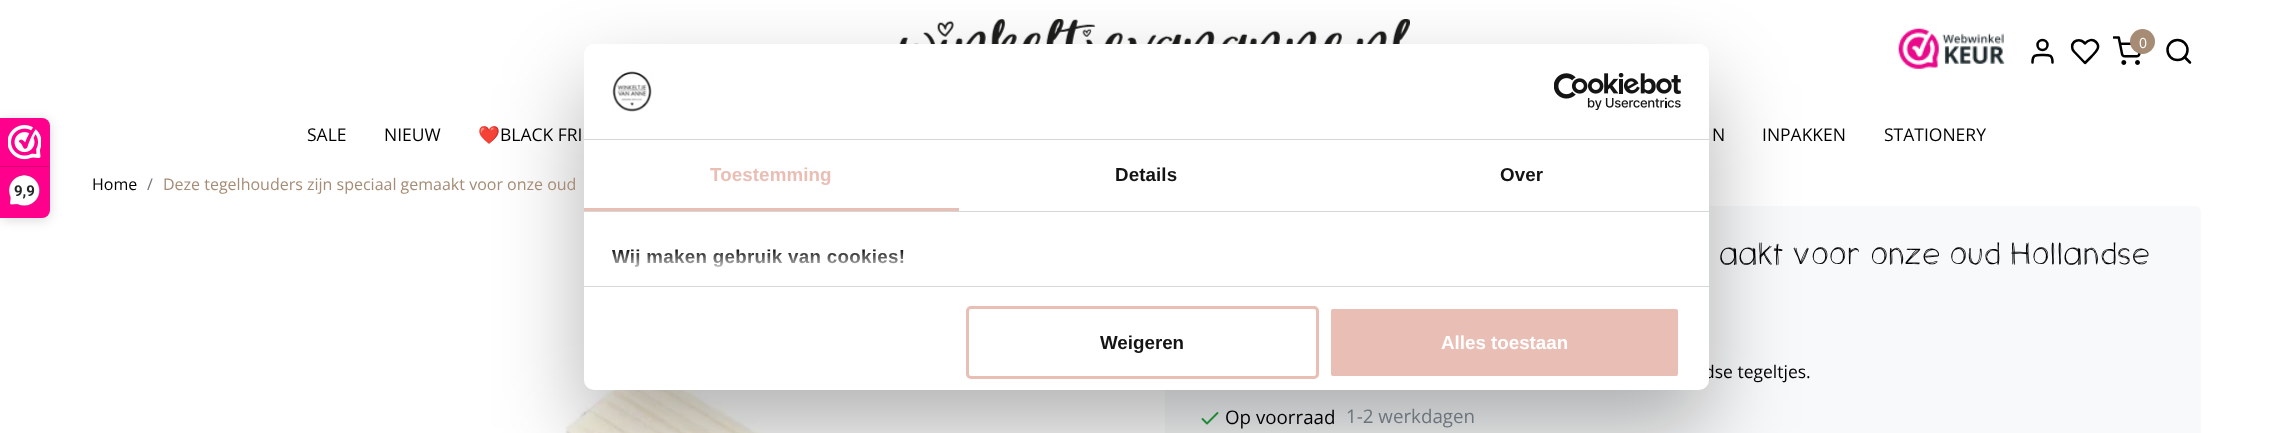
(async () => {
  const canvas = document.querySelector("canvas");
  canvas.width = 2292;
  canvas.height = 433;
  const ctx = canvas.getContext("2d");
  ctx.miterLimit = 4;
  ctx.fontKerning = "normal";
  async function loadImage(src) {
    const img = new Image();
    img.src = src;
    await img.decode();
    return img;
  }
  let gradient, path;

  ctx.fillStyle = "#ffffff";
  ctx.fillRect(0, 0, 2292, 433);
  ctx.drawImage(await loadImage("img/1.png"), 899, 19, 511, 25);
  ctx.drawImage(await loadImage("img/2.png"), 1898, 28, 107, 41);
  path = new Path2D("M2052.5 62.5C2052.5 54.5 2049.5 55 2042.5 55C2035.5 55 2032.5 54.5 2032.5 62.5");
  ctx.strokeStyle = "#000000";
  ctx.lineWidth = 2.5;
  ctx.lineCap = "round";
  ctx.lineJoin = "round";
  ctx.stroke(path);
  ctx.beginPath();
  ctx.arc(2042.5, 45, 5, 0, Math.PI * 2);
  ctx.stroke();
  path = new Path2D("M2096 42C2092.5 38.5 2088 40 2085 43.5L2083.5 42C2081 39.5 2076.5 39.5 2074 42C2071.5 44.5 2071.5 49 2074 51.5L2085 63L2091.5 56.5C2095 52.5 2101.5 47.5 2096 42Z");
  ctx.stroke(path);
  ctx.drawImage(await loadImage("img/3.png"), 2113, 36, 28, 29);
  ctx.fillStyle = "#a68c75";
  ctx.beginPath();
  ctx.arc(2142.5, 41.5, 12.5, 0, Math.PI * 2);
  ctx.fill();
  ctx.beginPath();
  ctx.arc(2177.5, 50, 10, 0, Math.PI * 2);
  ctx.stroke();
  path = new Path2D("M2190 62.5L2184.5 57");
  ctx.stroke(path);
  ctx.drawImage(await loadImage("img/4.png"), 565, 365, 198, 68);
  ctx.fillStyle = "#f8f9fa";
  ctx.beginPath();
  ctx.roundRect(1165, 206, 1036, 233, 6);
  ctx.fill();
  path = new Path2D("M1217.5 413L1207 423.5L1202.5 419");
  ctx.strokeStyle = "#28a745";
  ctx.lineWidth = 1.9;
  ctx.stroke(path);
  ctx.fillStyle = "rgba(0, 0, 0, 0.15)";
  ctx.filter = "blur(6px)";
  ctx.beginPath();
  ctx.roundRect(0, 120, 50, 100, 8);
  ctx.fill();
  ctx.filter = "none";
  ctx.fillStyle = "#fe008c";
  ctx.beginPath();
  ctx.roundRect(0, 118, 50, 100, [0, 8, 8, 0]);
  ctx.fill();
  ctx.drawImage(await loadImage("img/5.png"), 8, 125, 33, 35);
  ctx.fillStyle = "#d80077";
  ctx.fillRect(0, 166, 49, 1);
  ctx.drawImage(await loadImage("img/6.png"), 9, 175, 31, 31);
  ctx.fillStyle = "rgba(0, 0, 0, 0.3)";
  ctx.filter = "blur(42.5px)";
  ctx.beginPath();
  ctx.roundRect(584, 84, 1125, 346, 10);
  ctx.fill();
  ctx.filter = "none";
  ctx.font = "14px Open Sans";
  ctx.fillStyle = "#ffffff";
  ctx.fillText("0", 2139, 48);
  ctx.font = "17.5px Open Sans";
  ctx.fillStyle = "#000000";
  ctx.fillText("SALE", 307, 141);
  ctx.fillText("NIEUW", 384, 141);
  ctx.font = "17.5px Noto Color Emoji";
  ctx.fillText("❤️", 478, 141);
  ctx.font = "17.5px Open Sans";
  for (const [text, x, y] of [
    ["BLACK FRI", 500, 141],
    ["N", 1712, 141],
    ["INPAKKEN", 1762, 141],
    ["STATIONERY", 1884, 141],
  ]) {
    ctx.fillText(text, x, y);
  }
  ctx.font = "16px Open Sans";
  ctx.fillText("Home", 92, 190);
  ctx.fillStyle = "#6c757d";
  ctx.fillText("/", 147, 190);
  ctx.fillStyle = "#a68c75";
  ctx.fillText("Deze tegelhouders zijn speciaal gemaakt voor onze oud", 163, 190);
  ctx.font = "500 30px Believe";
  ctx.fillStyle = "#000000";
  ctx.fillText("aakt voor onze oud Hollandse", 1719, 264);
  ctx.font = "17.5px Open Sans";
  ctx.fillText("dse tegeltjes.", 1704, 378);
  ctx.font = "18.75px Open Sans";
  ctx.fillText("Op voorraad", 1225, 424);
  ctx.fillStyle = "#6c757d";
  ctx.fillText("1-2 werkdagen", 1346, 423);
  ctx.font = "bold 15px Roboto";
  ctx.fillStyle = "#272626";
  ctx.fillText("9,9", 14, 196);
  ctx.fillStyle = "#ffffff";
  ctx.beginPath();
  ctx.roundRect(584, 44, 1125, 346, 10);
  ctx.fill();
  ctx.fillStyle = "#d6d6d6";
  ctx.fillRect(584, 139, 1125, 1);
  ctx.drawImage(await loadImage("img/7.png"), 612, 71, 40, 41);
  ctx.drawImage(await loadImage("img/8.png"), 1554, 73, 127, 37);
  ctx.fillRect(584, 211, 1125, 1);
  ctx.fillStyle = "#e9beb5";
  ctx.fillRect(584, 208, 375, 3);
  ctx.letterSpacing = "0.1px";
  ctx.font = "bold 18.75px Liberation Sans";
  ctx.fillText("Toestemming", 710, 181);
  ctx.fillStyle = "#141414";
  ctx.fillText("Details", 1115, 181);
  ctx.fillText("Over", 1500, 181);
  ctx.fillStyle = "#d6d6d6";
  ctx.fillRect(584, 286, 1125, 1);
  ctx.letterSpacing = "0.3px";
  ctx.fillStyle = "#141414";
  ctx.fillText("Wij maken gebruik van cookies!", 612, 263);
  gradient = ctx.createLinearGradient(1134, 287, 1134, 250);
  gradient.addColorStop(0, "#ffffff");
  gradient.addColorStop(0.5, "rgba(255, 255, 255, 0.8)");
  gradient.addColorStop(1, "rgba(255, 255, 255, 0)");
  ctx.fillStyle = gradient;
  ctx.fillRect(612, 250, 292, 17);
  ctx.beginPath();
  ctx.roundRect(967.5, 307.5, 350, 70, 3.5);
  ctx.strokeStyle = "#e9beb5";
  ctx.lineWidth = 3;
  ctx.lineJoin = "miter";
  ctx.stroke();
  ctx.letterSpacing = "0px";
  ctx.fillStyle = "#141414";
  ctx.fillText("Weigeren", 1100, 349);
  ctx.fillStyle = "#e9beb5";
  ctx.beginPath();
  ctx.roundRect(1329.5, 307.5, 350, 70, 3.5);
  ctx.fill();
  ctx.strokeStyle = "#ffffff";
  ctx.stroke();
  ctx.fillStyle = "#ffffff";
  ctx.fillText("Alles toestaan", 1441, 349);
})();
